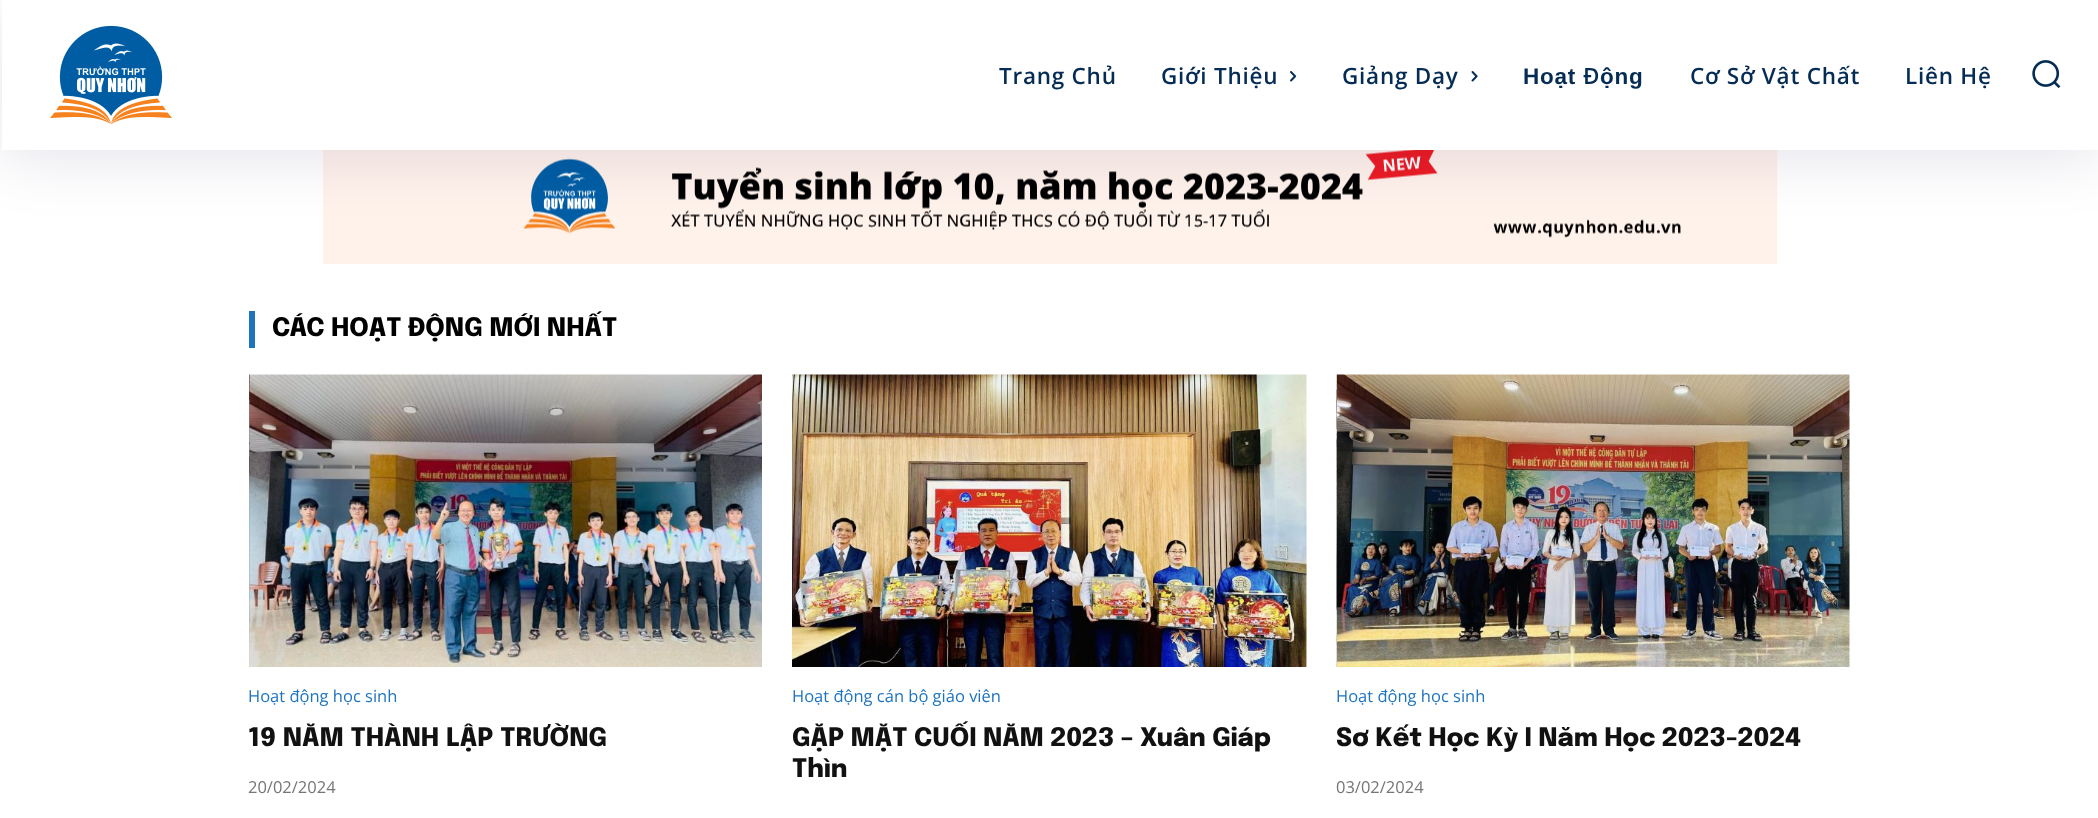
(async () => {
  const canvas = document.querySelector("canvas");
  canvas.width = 2098;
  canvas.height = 818;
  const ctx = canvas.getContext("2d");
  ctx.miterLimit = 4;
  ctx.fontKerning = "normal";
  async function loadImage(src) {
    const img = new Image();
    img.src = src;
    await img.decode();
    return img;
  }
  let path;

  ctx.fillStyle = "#ffffff";
  ctx.fillRect(0, 0, 2098, 818);
  ctx.drawImage(await loadImage("img/1.png"), 50, 25, 122, 99);
  ctx.drawImage(await loadImage("img/5.png"), 323, 150, 1455, 114);
  ctx.save();
  path = new Path2D("M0 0H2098V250H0ZM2 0H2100V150H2Z");
  ctx.clip(path, "evenodd");
  ctx.fillStyle = "rgba(2, 2, 71, 0.1)";
  ctx.filter = "blur(30px)";
  ctx.beginPath();
  ctx.rect(2, 9, 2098, 150);
  ctx.fill();
  ctx.filter = "none";
  ctx.restore();
  ctx.drawImage(await loadImage("img/2.png"), 1290, 71, 7, 11);
  ctx.drawImage(await loadImage("img/3.png"), 1471, 71, 7, 11);
  ctx.drawImage(await loadImage("img/4.png"), 2032, 60, 29, 29);
  ctx.fillStyle = "#1e73be";
  ctx.fillRect(249, 311, 6, 37);
  ctx.drawImage(await loadImage("img/6.png"), 249, 374, 513, 293);
  ctx.drawImage(await loadImage("img/7.png"), 792, 374, 515, 293);
  ctx.drawImage(await loadImage("img/8.png"), 1336, 374, 514, 293);
  ctx.letterSpacing = "0.75px";
  ctx.font = "600 22.5px Open Sans";
  ctx.fillStyle = "#052c54";
  for (const [text, x, y] of [
    ["Trang Chủ", 999, 84],
    ["Giới Thiệu", 1161, 84],
    ["Giảng Dạy", 1342, 84],
  ]) {
    ctx.fillText(text, x, y);
  }
  ctx.font = "bold 22.5px Liberation Sans";
  ctx.fillText("Hoạt", 1523, 84);
  ctx.font = "600 22.5px Open Sans";
  ctx.fillText("Đ", 1583, 84);
  ctx.font = "bold 22.5px Liberation Sans";
  ctx.fillText("ộng", 1600, 84);
  ctx.font = "600 22.5px Open Sans";
  ctx.fillText("Cơ Sở Vật Chất", 1690, 84);
  ctx.fillText("Liên Hệ", 1905, 84);
  ctx.letterSpacing = "0px";
  ctx.font = "800 25.5px Epilogue";
  ctx.fillStyle = "#000000";
  ctx.fillText("CÁC HOẠT ĐỘNG MỚI NHẤT", 272, 336);
  ctx.font = "16.5px Open Sans";
  ctx.fillStyle = "#1e73be";
  ctx.fillText("Hoạt động học sinh", 248, 702);
  ctx.wordSpacing = "0.5px";
  ctx.font = "800 25.5px Epilogue";
  ctx.fillStyle = "#111111";
  ctx.fillText("19 NĂM THÀNH LẬP TRƯỜNG", 248, 746);
  ctx.wordSpacing = "0px";
  ctx.font = "16.5px Open Sans";
  ctx.fillStyle = "#767676";
  ctx.fillText("20/02/2024", 248, 793);
  ctx.fillStyle = "#1e73be";
  ctx.fillText("Hoạt động cán bộ giáo viên", 792, 702);
  ctx.font = "800 25.5px Epilogue";
  ctx.fillStyle = "#111111";
  ctx.fillText("GẶP MẶT CUỐI NĂM 2023 – Xuân Giáp", 792, 746);
  ctx.fillText("Thìn", 792, 777);
  ctx.font = "16.5px Open Sans";
  ctx.fillStyle = "#1e73be";
  ctx.fillText("Hoạt động học sinh", 1336, 702);
  ctx.font = "800 25.5px Epilogue";
  ctx.fillStyle = "#111111";
  ctx.fillText("Sơ Kết Học Kỳ I Năm Học 2023-2024", 1336, 746);
  ctx.font = "16.5px Open Sans";
  ctx.fillStyle = "#767676";
  ctx.fillText("03/02/2024", 1336, 793);
})();
